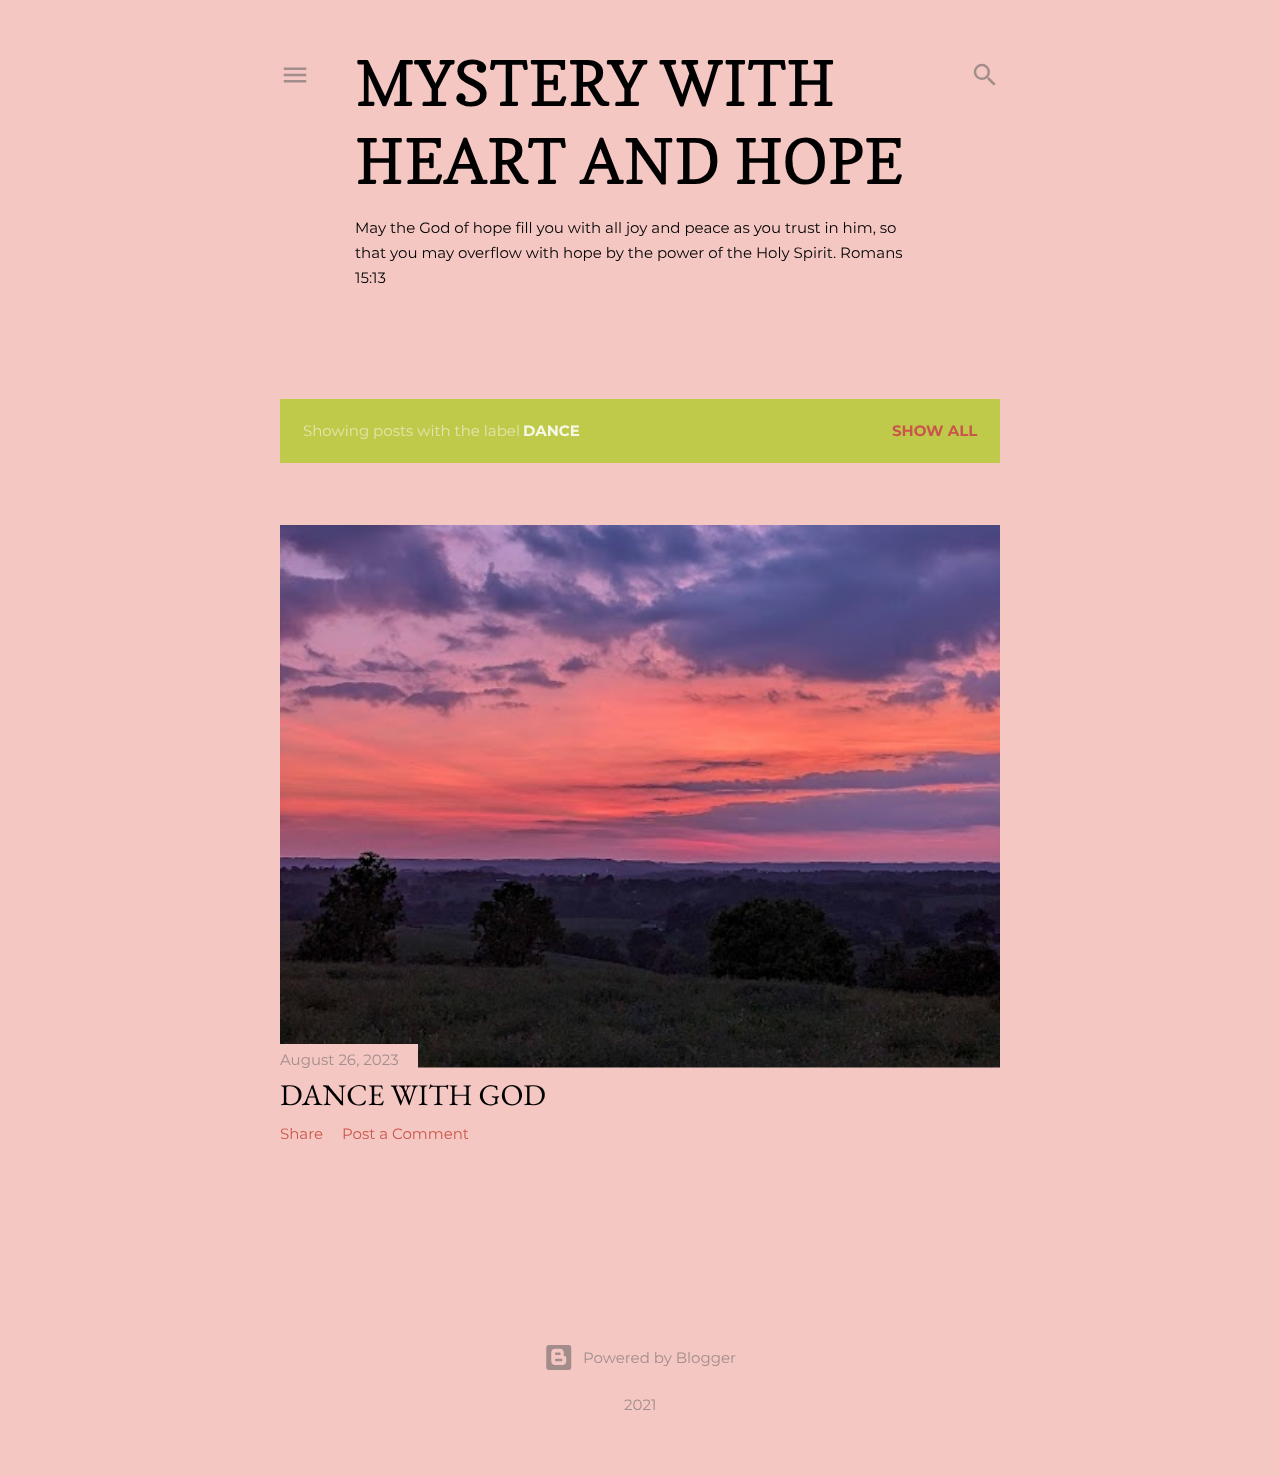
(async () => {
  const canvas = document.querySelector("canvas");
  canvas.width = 1279;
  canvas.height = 1476;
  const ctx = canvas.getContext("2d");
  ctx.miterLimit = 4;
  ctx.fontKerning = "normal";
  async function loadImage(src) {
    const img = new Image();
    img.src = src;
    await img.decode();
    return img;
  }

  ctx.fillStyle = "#f4c7c3";
  ctx.fillRect(0, 0, 1279, 1476);
  ctx.drawImage(await loadImage("img/1.png"), 283, 67, 24, 16);
  ctx.drawImage(await loadImage("img/2.png"), 973, 63, 23, 23);
  ctx.fillStyle = "#bfca4b";
  ctx.fillRect(280, 399, 720, 64);
  ctx.drawImage(await loadImage("img/3.png"), 280, 525, 720, 543);
  ctx.fillStyle = "#f4c7c3";
  ctx.fillRect(280, 1044, 138, 24);
  ctx.drawImage(await loadImage("img/4.png"), 546, 1345, 26, 25);
  ctx.font = "62.5px Copse";
  ctx.fillStyle = "#000000";
  ctx.fillText("MYSTERY WITH", 355, 106);
  ctx.fillText("HEART AND HOPE", 355, 184);
  ctx.font = "15px Montserrat";
  for (const [text, x, y] of [
    ["May the God of hope fill you with all joy and peace as you trust in him, so", 355, 233],
    ["that you may overflow with hope by the power of the Holy Spirit. Romans", 355, 258],
    ["15:13", 355, 283],
  ]) {
    ctx.fillText(text, x, y);
  }
  ctx.fillStyle = "#e1e6ac";
  ctx.fillText("Showing posts with the label", 303, 436);
  ctx.font = "bold 15px Montserrat";
  ctx.fillStyle = "#f6f8e7";
  ctx.fillText("DANCE", 523, 436);
  ctx.fillStyle = "#ca564b";
  ctx.fillText("SHOW ALL", 892, 436);
  ctx.font = "15px Montserrat";
  ctx.fillStyle = "#a28e8c";
  ctx.fillText("August 26, 2023", 280, 1065);
  ctx.font = "30px EB Garamond";
  ctx.fillStyle = "#000000";
  ctx.fillText("DANCE WITH GOD", 280, 1105);
  ctx.font = "15px Montserrat";
  ctx.fillStyle = "#ca564b";
  ctx.fillText("Share", 280, 1139);
  ctx.fillText("Post a Comment", 342, 1139);
  ctx.fillStyle = "#a28e8c";
  ctx.fillText("Powered by Blogger", 583, 1363);
  ctx.fillText("2021", 624, 1410);
})();
